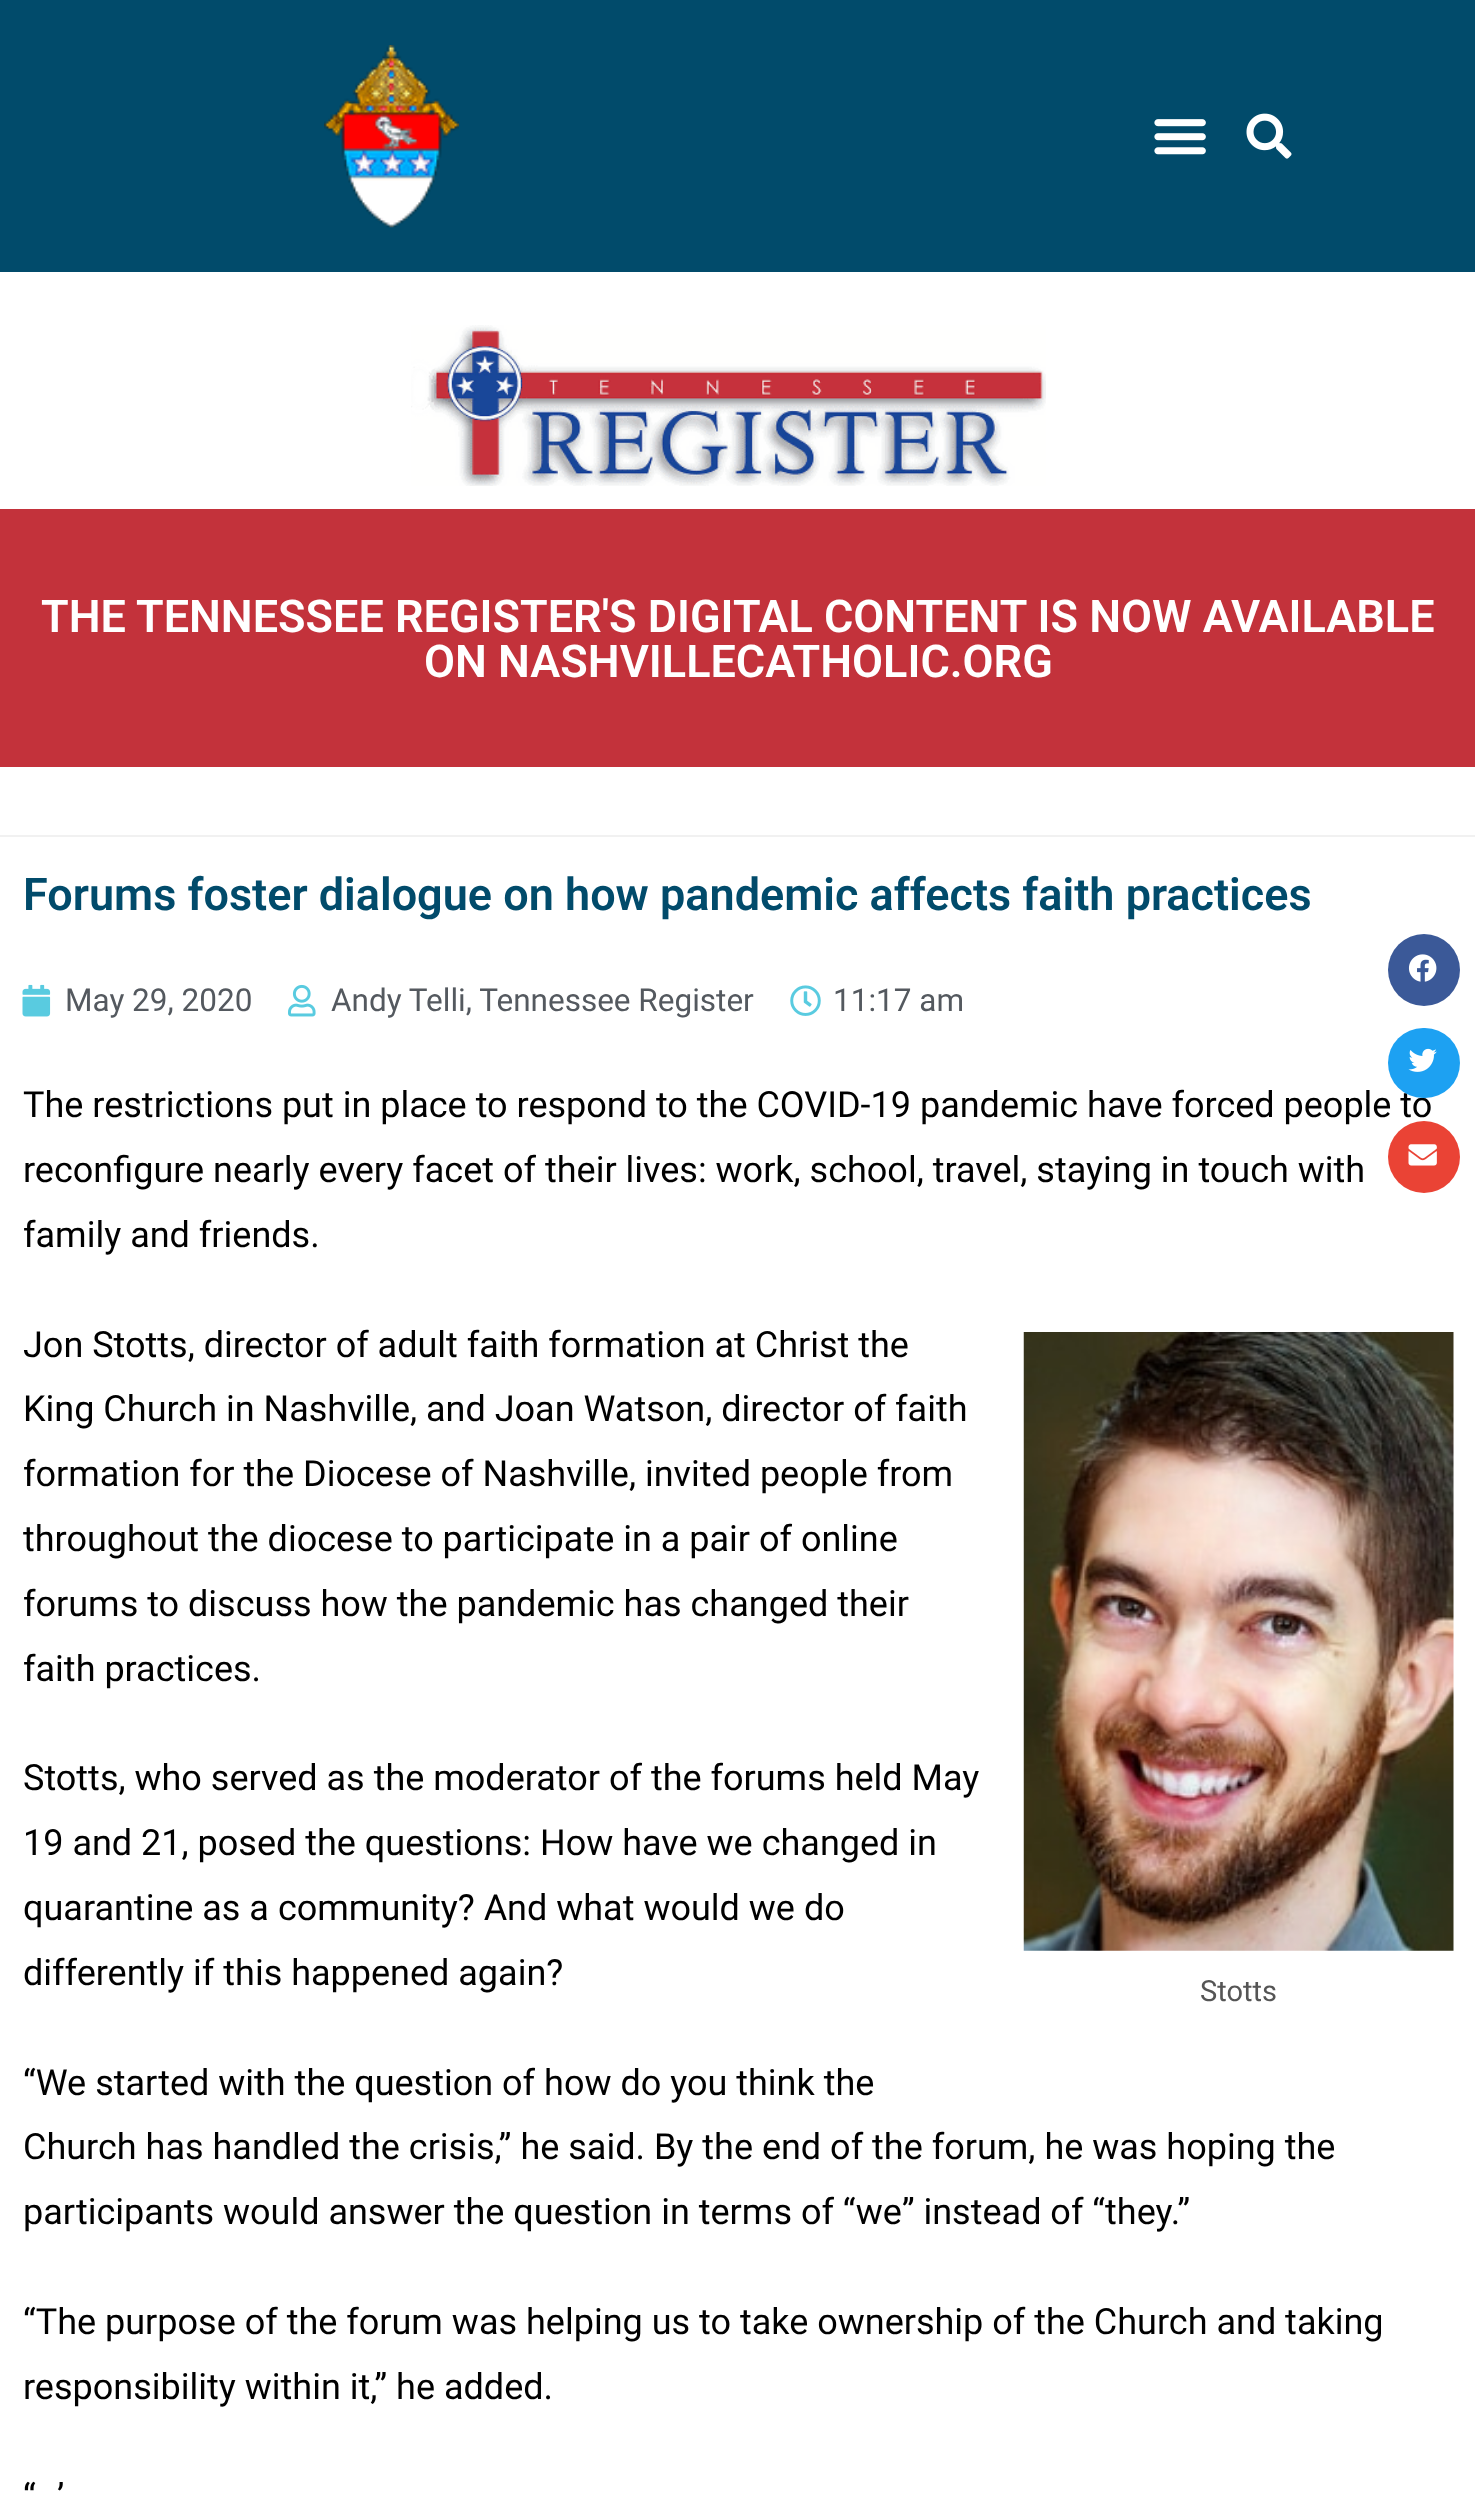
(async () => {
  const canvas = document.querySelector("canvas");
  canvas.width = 1475;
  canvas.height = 2501;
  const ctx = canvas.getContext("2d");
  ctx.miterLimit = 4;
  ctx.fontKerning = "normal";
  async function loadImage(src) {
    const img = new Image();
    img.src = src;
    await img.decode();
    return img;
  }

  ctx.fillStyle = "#ffffff";
  ctx.fillRect(0, 0, 1475, 2501);
  ctx.fillStyle = "#f1f1f1";
  ctx.fillRect(0, 835, 1475, 2);
  ctx.fillStyle = "#014b6b";
  ctx.fillRect(0, 0, 1475, 272);
  ctx.drawImage(await loadImage("img/1.png"), 324, 45, 135, 183);
  ctx.drawImage(await loadImage("img/2.png"), 1154, 119, 52, 36);
  ctx.drawImage(await loadImage("img/3.png"), 1246, 113, 46, 46);
  ctx.drawImage(await loadImage("img/4.png"), 411, 325, 635, 161);
  ctx.fillStyle = "#c3323b";
  ctx.fillRect(0, 509, 1475, 258);
  ctx.drawImage(await loadImage("img/5.png"), 22, 984, 29, 33);
  ctx.drawImage(await loadImage("img/6.png"), 288, 984, 28, 33);
  ctx.drawImage(await loadImage("img/7.png"), 790, 985, 31, 31);
  ctx.fillStyle = "#3b5998";
  ctx.beginPath();
  ctx.arc(1424, 970, 36, 0, Math.PI * 2);
  ctx.fill();
  ctx.drawImage(await loadImage("img/8.png"), 1408, 954, 29, 28);
  ctx.drawImage(await loadImage("img/11.png"), 1023, 1332, 431, 619);
  ctx.font = "600 45px Roboto";
  ctx.fillStyle = "#ffffff";
  ctx.fillText("THE TENNESSEE REGISTER'S DIGITAL CONTENT IS NOW AVAILABLE", 41, 632);
  ctx.fillText("ON NASHVILLECATHOLIC.ORG", 424, 677);
  ctx.fillStyle = "#014b6b";
  ctx.fillText("Forums foster dialogue on how pandemic affects faith practices", 23, 910);
  ctx.font = "31.5px Roboto";
  ctx.fillStyle = "#54595f";
  for (const [text, x, y] of [
    ["May 29, 2020", 65, 1011],
    ["Andy Telli, Tennessee Register", 331, 1011],
    ["11:17 am", 833, 1011],
  ]) {
    ctx.fillText(text, x, y);
  }
  ctx.font = "36px Roboto";
  ctx.fillStyle = "#000000";
  ctx.fillText("The restrictions put in place to respond to the COVID-19 pandemic have forced people to", 23, 1117);
  ctx.fillStyle = "#ea4335";
  ctx.beginPath();
  ctx.arc(1424, 1157, 36, 0, Math.PI * 2);
  ctx.fill();
  ctx.drawImage(await loadImage("img/10.png"), 1408, 1144, 29, 22);
  ctx.fillStyle = "#1da1f2";
  ctx.beginPath();
  ctx.roundRect(1388, 1028, 72, 70, 35);
  ctx.fill();
  ctx.drawImage(await loadImage("img/9.png"), 1408, 1048, 29, 24);
  ctx.fillStyle = "#000000";
  for (const [text, x, y] of [
    ["reconfigure nearly every facet of their lives: work, school, travel, staying in touch with", 23, 1182],
    ["family and friends.", 23, 1247],
    ["Jon Stotts, director of adult faith formation at Christ the", 23, 1357],
    ["King Church in Nashville, and Joan Watson, director of faith", 23, 1421],
    ["formation for the Diocese of Nashville, invited people from", 23, 1486],
    ["throughout the diocese to participate in a pair of online", 23, 1551],
    ["forums to discuss how the pandemic has changed their", 23, 1616],
    ["faith practices.", 23, 1681],
    ["Stotts, who served as the moderator of the forums held May", 23, 1790],
    ["19 and 21, posed the questions: How have we changed in", 23, 1855],
    ["quarantine as a community? And what would we do", 23, 1920],
    ["differently if this happened again?", 23, 1985],
  ]) {
    ctx.fillText(text, x, y);
  }
  ctx.font = "29px Roboto";
  ctx.fillStyle = "#555555";
  ctx.fillText("Stotts", 1200, 2001);
  ctx.font = "36px Roboto";
  ctx.fillStyle = "#000000";
  for (const [text, x, y] of [
    ["“We started with the question of how do you think the", 23, 2095],
    ["Church has handled the crisis,” he said. By the end of the forum, he was hoping the", 23, 2159],
    ["participants would answer the question in terms of “we” instead of “they.”", 23, 2224],
    ["“The purpose of the forum was helping us to take ownership of the Church and taking", 23, 2334],
    ["responsibility within it,” he added.", 23, 2399],
    ["“", 23, 2509],
    ["’", 57, 2509],
  ]) {
    ctx.fillText(text, x, y);
  }
})();
